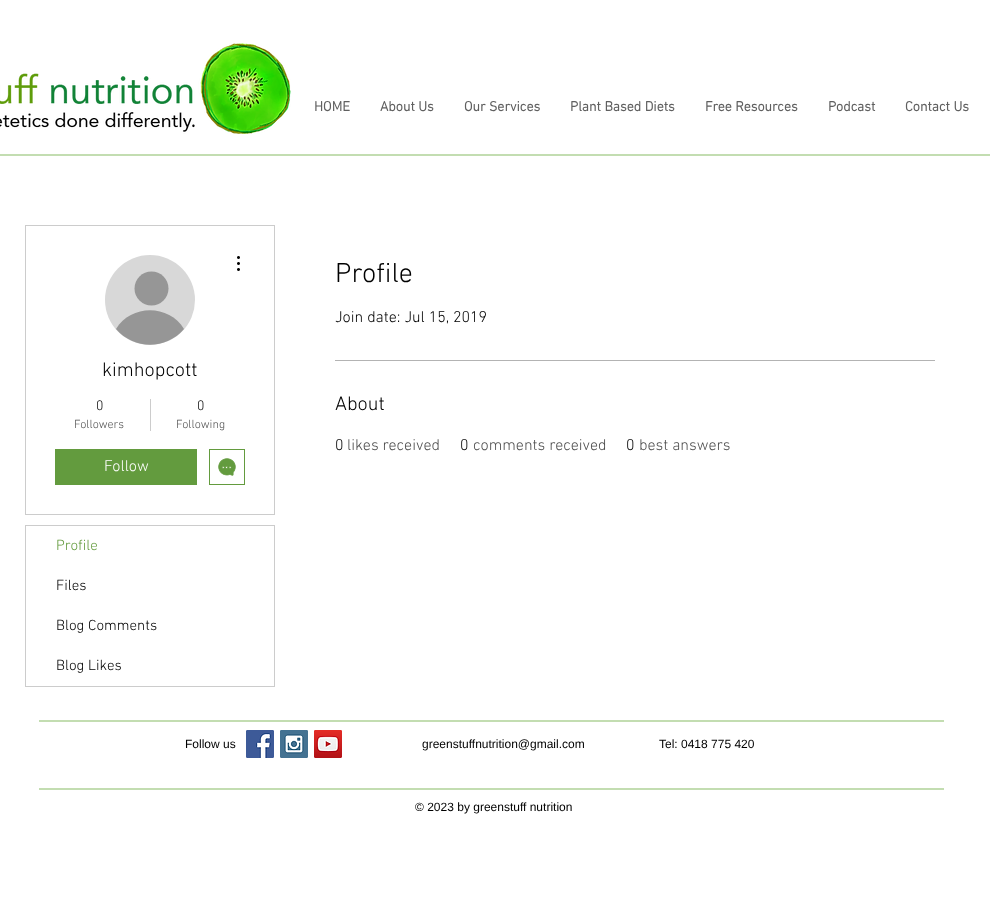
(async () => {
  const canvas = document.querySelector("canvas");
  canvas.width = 990;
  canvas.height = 924;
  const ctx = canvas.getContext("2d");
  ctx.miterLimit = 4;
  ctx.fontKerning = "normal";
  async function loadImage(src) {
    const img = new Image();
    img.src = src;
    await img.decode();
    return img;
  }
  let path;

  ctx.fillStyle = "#ffffff";
  ctx.fillRect(0, 0, 990, 924);
  ctx.drawImage(await loadImage("img/1.png"), 0, 43, 291, 91);
  ctx.fillStyle = "#c3ddb1";
  ctx.fillRect(0, 154, 990, 2);
  ctx.strokeStyle = "#cccccc";
  ctx.strokeRect(25.5, 225.5, 249, 289);
  ctx.fillStyle = "#d8d8d8";
  ctx.beginPath();
  ctx.arc(150, 300, 45, 0, Math.PI * 2);
  ctx.fill();
  ctx.fillStyle = "#969696";
  ctx.beginPath();
  ctx.arc(151.5, 288.5, 17, 0, Math.PI * 2);
  ctx.fill();
  path = new Path2D("M184 329C166 350 134 350 116 329C131 304 169 304 184 329Z");
  ctx.fill(path);
  ctx.drawImage(await loadImage("img/2.png"), 237, 256, 3, 15);
  ctx.fillStyle = "#cccccc";
  ctx.fillRect(150, 399, 1, 32);
  ctx.fillStyle = "#639b3e";
  ctx.fillRect(55, 449, 142, 36);
  ctx.strokeStyle = "#639b3e";
  ctx.strokeRect(209.5, 449.5, 35, 35);
  ctx.drawImage(await loadImage("img/3.png"), 218, 458, 18, 18);
  ctx.strokeStyle = "#cccccc";
  ctx.strokeRect(25.5, 525.5, 249, 161);
  ctx.fillStyle = "#b3b3b3";
  ctx.fillRect(335, 360, 600, 1);
  ctx.fillStyle = "#c3ddb1";
  ctx.fillRect(39, 720, 905, 2);
  ctx.drawImage(await loadImage("img/4.png"), 246, 730, 28, 28);
  ctx.drawImage(await loadImage("img/5.png"), 280, 730, 28, 28);
  ctx.drawImage(await loadImage("img/6.png"), 314, 730, 28, 28);
  ctx.fillRect(39, 788, 905, 2);
  ctx.font = "bold 14px 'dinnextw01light'";
  ctx.fillStyle = "#606060";
  for (const [text, x, y] of [
    ["HOME", 314, 111],
    ["About Us", 380, 111],
    ["Our Services", 464, 111],
    ["Plant Based Diets", 570, 111],
    ["Free Resources", 705, 111],
    ["Podcast", 828, 111],
    ["Contact Us", 905, 111],
  ]) {
    ctx.fillText(text, x, y);
  }
  ctx.font = "300 20px 'dinnextw01light'";
  ctx.fillStyle = "#000000";
  ctx.fillText("kimhopcott", 102, 376);
  ctx.font = "300 14px 'dinnextw01light'";
  ctx.fillText("0", 96, 410);
  ctx.font = "300 12px 'dinnextw01light'";
  ctx.fillStyle = "#4d4d4d";
  ctx.fillText("Followers", 74, 428);
  ctx.font = "300 14px 'dinnextw01light'";
  ctx.fillStyle = "#000000";
  ctx.fillText("0", 197, 410);
  ctx.font = "300 12px 'dinnextw01light'";
  ctx.fillStyle = "#4d4d4d";
  ctx.fillText("Following", 176, 428);
  ctx.font = "300 16px 'dinnextw01light'";
  ctx.fillStyle = "#ffffff";
  ctx.fillText("Follow", 104, 471);
  ctx.font = "300 15px 'dinnextw01light'";
  ctx.fillStyle = "#639b3e";
  ctx.fillText("Profile", 56, 550);
  ctx.fillStyle = "#000000";
  for (const [text, x, y] of [
    ["Files", 56, 590],
    ["Blog Comments", 56, 630],
    ["Blog Likes", 56, 670],
  ]) {
    ctx.fillText(text, x, y);
  }
  ctx.font = "300 28px 'dinnextw01light'";
  ctx.fillText("Profile", 335, 282);
  ctx.font = "300 16px 'dinnextw01light'";
  ctx.fillText("Join date: Jul 15, 2019", 335, 322);
  ctx.font = "300 20px 'dinnextw01light'";
  ctx.fillText("About", 335, 410);
  ctx.font = "300 16px 'dinnextw01light'";
  ctx.fillText("0", 335, 450);
  ctx.fillStyle = "#4d4d4d";
  ctx.fillText("likes received", 347, 450);
  ctx.fillStyle = "#000000";
  ctx.fillText("0", 460, 450);
  ctx.fillStyle = "#4d4d4d";
  ctx.fillText("comments received", 473, 450);
  ctx.fillStyle = "#000000";
  ctx.fillText("0", 626, 450);
  ctx.fillStyle = "#4d4d4d";
  ctx.fillText("best answers", 639, 450);
  ctx.font = "12px Liberation Sans";
  ctx.fillStyle = "#000000";
  for (const [text, x, y] of [
    ["Follow us", 185, 748],
    ["greenstuffnutrition@gmail.com", 422, 748],
    ["Tel: 0418 775 420", 659, 748],
    ["© 2023 by greenstuff nutrition", 415, 811],
  ]) {
    ctx.fillText(text, x, y);
  }
})();
